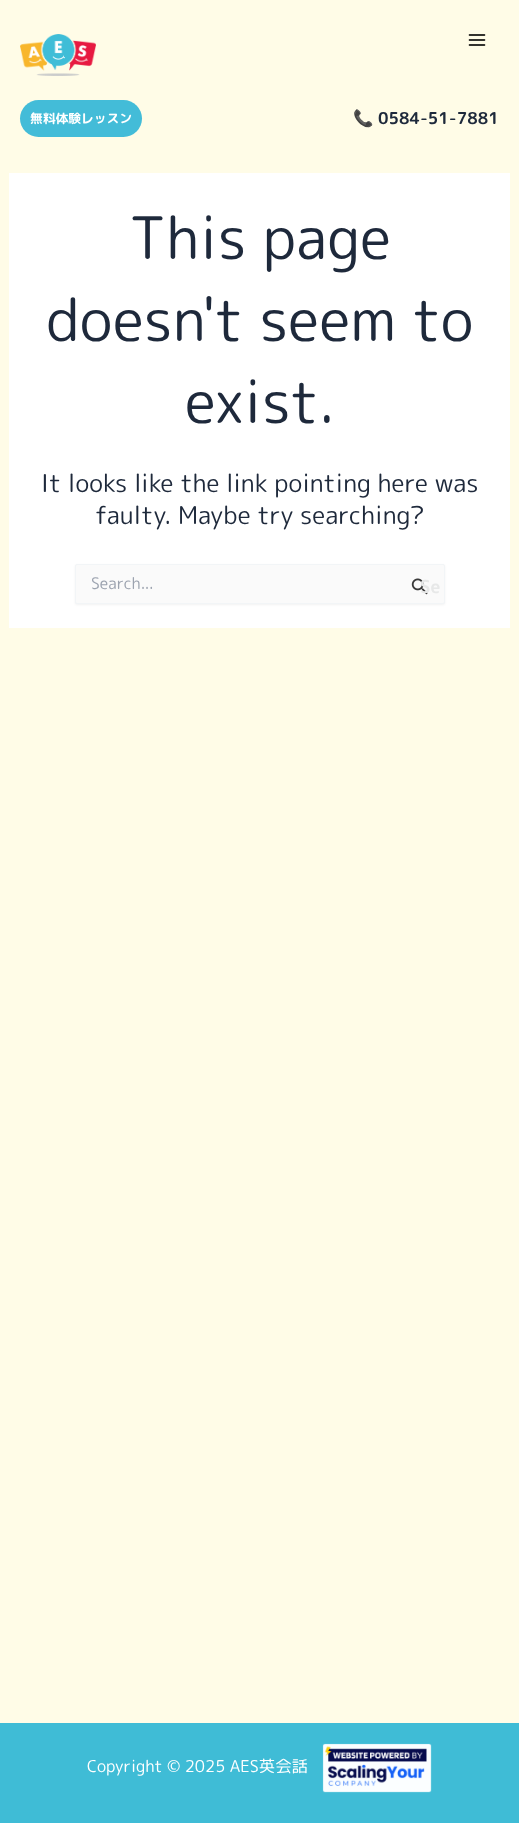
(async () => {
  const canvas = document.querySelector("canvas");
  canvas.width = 519;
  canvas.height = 1823;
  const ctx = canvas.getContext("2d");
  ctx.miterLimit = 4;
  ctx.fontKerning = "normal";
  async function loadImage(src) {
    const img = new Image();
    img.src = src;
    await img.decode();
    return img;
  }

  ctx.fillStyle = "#fffce7";
  ctx.fillRect(0, 0, 519, 1823);
  ctx.drawImage(await loadImage("img/1.png"), 20, 34, 76, 42);
  ctx.drawImage(await loadImage("img/2.png"), 468, 34, 18, 12);
  ctx.fillStyle = "#43bcd8";
  ctx.beginPath();
  ctx.roundRect(20, 100, 122, 37, 18.5);
  ctx.fill();
  ctx.fillStyle = "#ffffff";
  ctx.fillRect(9, 173, 501, 455);
  ctx.fillStyle = "rgba(0, 0, 0, 0.05)";
  ctx.filter = "blur(1px)";
  ctx.beginPath();
  ctx.roundRect(75, 565, 370, 40, 2);
  ctx.fill();
  ctx.filter = "none";
  ctx.fillStyle = "#fafafa";
  ctx.beginPath();
  ctx.roundRect(75.5, 564.5, 369, 39, 1.5);
  ctx.fill();
  ctx.strokeStyle = "#f2f5f7";
  ctx.stroke();
  ctx.drawImage(await loadImage("img/3.png"), 411, 578, 17, 17);
  ctx.fillStyle = "#3fbcd6";
  ctx.fillRect(0, 1723, 519, 100);
  ctx.drawImage(await loadImage("img/4.png"), 322, 1743, 110, 50);
  ctx.font = "bold 12.75px 'Rounded Mplus 1c Bold'";
  ctx.fillStyle = "#ffffff";
  ctx.fillText("無料体験レッスン", 30, 123);
  ctx.font = "bold 16.4px Noto Color Emoji";
  ctx.fillStyle = "#1e293b";
  ctx.fillText("📞", 353, 124);
  ctx.font = "bold 16.4px 'Rounded Mplus 1c Bold'";
  ctx.fillText("0584-51-7881", 378, 124);
  ctx.font = "58.5px 'Rounded Mplus 1c'";
  for (const [text, x, y] of [
    ["This page", 129, 259],
    ["doesn't seem to", 46, 341],
    ["exist.", 185, 423],
  ]) {
    ctx.fillText(text, x, y);
  }
  ctx.font = "24.6px 'Rounded Mplus 1c'";
  ctx.fillText("It looks like the link pointing here was", 41, 492);
  ctx.fillText("faulty. Maybe try searching?", 95, 524);
  ctx.font = "16px 'Rounded Mplus 1c'";
  ctx.fillStyle = "#9ca3af";
  ctx.fillText("Search...", 91, 589);
  ctx.font = "bold 18px 'Rounded Mplus 1c Bold'";
  ctx.fillStyle = "#e7e8e8";
  ctx.fillText("Se", 420, 593);
  ctx.font = "16.4px 'Rounded Mplus 1c'";
  ctx.fillStyle = "#ffffff";
  ctx.fillText("Copyright © 2025 AES英会話", 87, 1772);
})();
